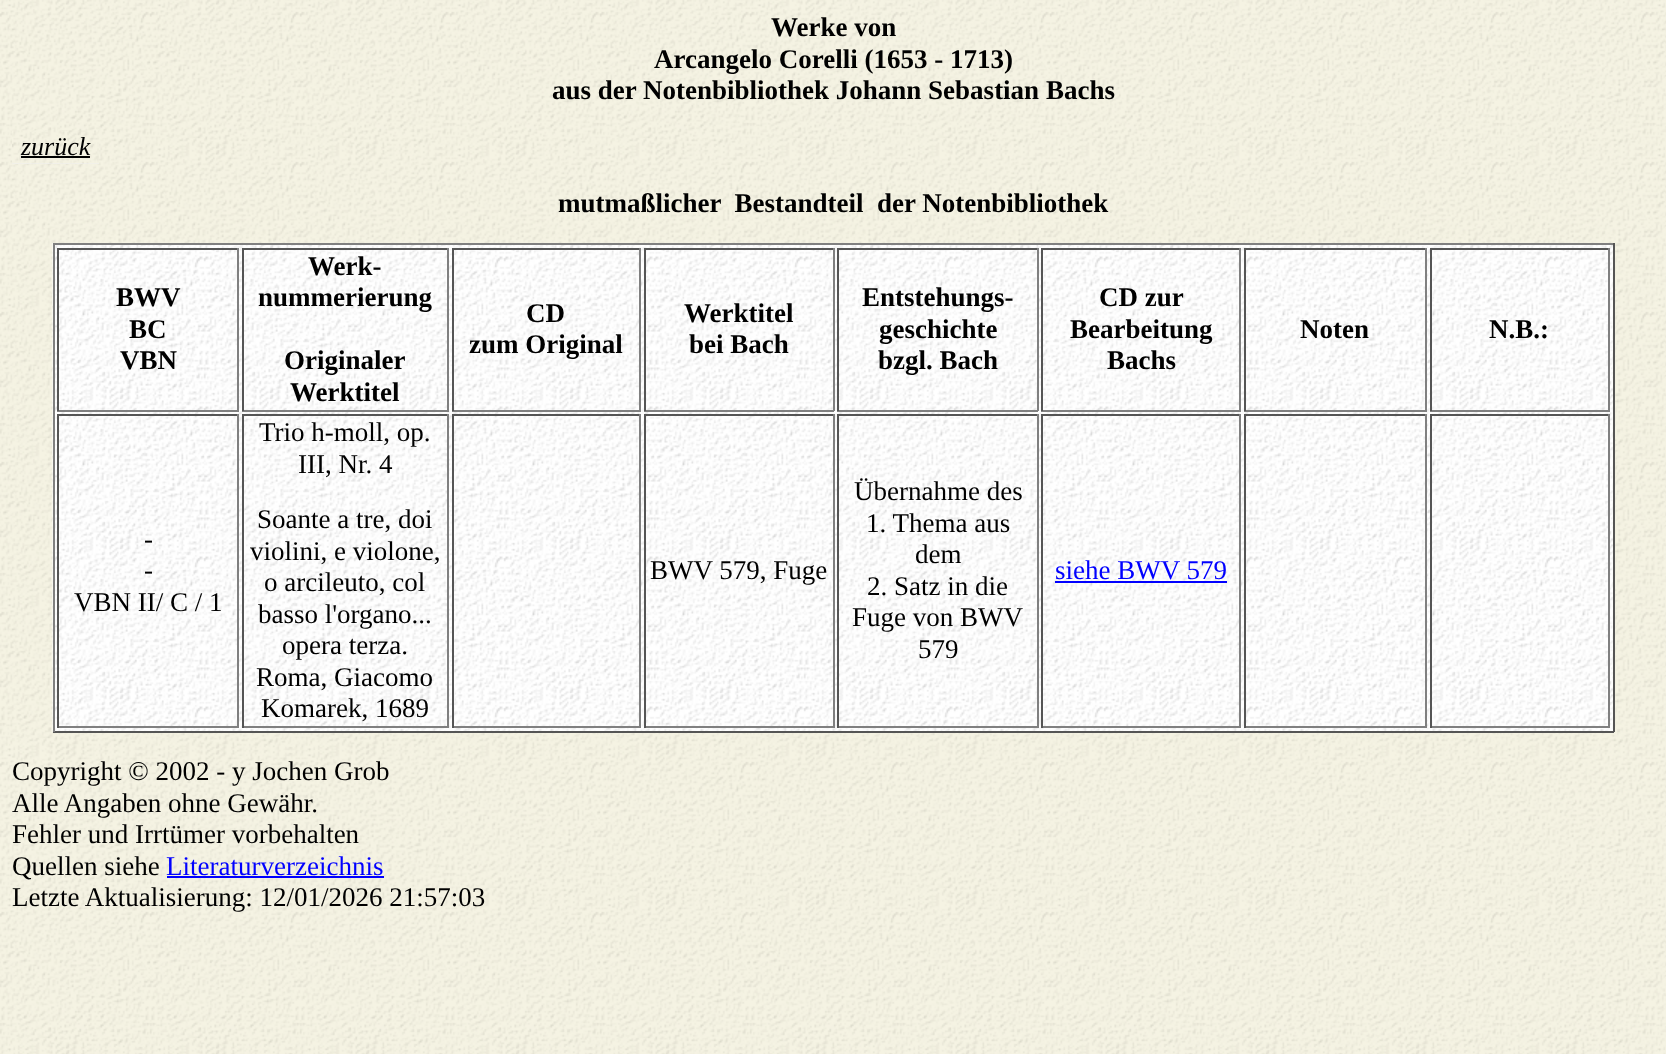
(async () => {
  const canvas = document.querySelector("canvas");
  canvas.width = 1666;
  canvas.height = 1054;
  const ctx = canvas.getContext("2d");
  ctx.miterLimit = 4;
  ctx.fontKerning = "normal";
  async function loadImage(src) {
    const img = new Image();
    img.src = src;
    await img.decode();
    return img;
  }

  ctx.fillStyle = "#ffffff";
  ctx.fillRect(0, 0, 1666, 1054);
  ctx.drawImage(await loadImage("img/1.png"), 0, 0, 1666, 1054);
  ctx.fillStyle = "#efefef";
  ctx.fillRect(12, 163, 87, 1);
  ctx.drawImage(await loadImage("img/2.png"), 12, 130, 87, 34);
  ctx.fillStyle = "#000000";
  ctx.fillRect(21, 156, 69, 2);
  ctx.drawImage(await loadImage("img/3.png"), 52, 243, 1561, 489);
  for (const [x, y, w, h, color] of [
    [53, 243, 1561, 2, "#808080"],
    [1613, 243, 2, 489, "#555555"],
    [53, 731, 1561, 2, "#555555"],
    [53, 243, 2, 489, "#808080"],
    [57, 248, 182, 2, "#555555"],
    [237, 248, 2, 163, "#808080"],
    [57, 410, 182, 2, "#808080"],
    [57, 248, 2, 163, "#555555"],
    [242, 248, 207, 2, "#555555"],
    [447, 248, 2, 163, "#808080"],
    [242, 410, 207, 2, "#808080"],
    [242, 248, 2, 163, "#555555"],
    [452, 248, 189, 2, "#555555"],
    [639, 248, 2, 163, "#808080"],
    [452, 410, 189, 2, "#808080"],
    [452, 248, 2, 163, "#555555"],
    [644, 248, 190, 2, "#555555"],
    [833, 248, 2, 163, "#808080"],
    [644, 410, 190, 2, "#808080"],
    [644, 248, 2, 163, "#555555"],
    [837, 248, 201, 2, "#555555"],
    [1037, 248, 2, 163, "#808080"],
    [837, 410, 201, 2, "#808080"],
    [837, 248, 2, 163, "#555555"],
    [1041, 248, 200, 2, "#555555"],
    [1239, 248, 2, 163, "#808080"],
    [1041, 410, 200, 2, "#808080"],
    [1041, 248, 2, 163, "#555555"],
    [1244, 248, 183, 2, "#555555"],
    [1425, 248, 2, 163, "#808080"],
    [1244, 410, 183, 2, "#808080"],
    [1244, 248, 2, 163, "#555555"],
    [1430, 248, 180, 2, "#555555"],
    [1608, 248, 2, 163, "#808080"],
    [1430, 410, 180, 2, "#808080"],
    [1430, 248, 2, 163, "#555555"],
    [57, 414, 182, 2, "#555555"],
    [237, 414, 2, 314, "#808080"],
    [57, 726, 182, 2, "#808080"],
    [57, 414, 2, 314, "#555555"],
    [242, 414, 207, 2, "#555555"],
    [447, 414, 2, 314, "#808080"],
    [242, 726, 207, 2, "#808080"],
    [242, 414, 2, 314, "#555555"],
    [452, 414, 189, 2, "#555555"],
    [639, 414, 2, 314, "#808080"],
    [452, 726, 189, 2, "#808080"],
    [452, 414, 2, 314, "#555555"],
    [644, 414, 190, 2, "#555555"],
    [833, 414, 2, 314, "#808080"],
    [644, 726, 190, 2, "#808080"],
    [644, 414, 2, 314, "#555555"],
    [837, 414, 201, 2, "#555555"],
    [1037, 414, 2, 314, "#808080"],
    [837, 726, 201, 2, "#808080"],
    [837, 414, 2, 314, "#555555"],
    [1041, 414, 200, 2, "#555555"],
    [1239, 414, 2, 314, "#808080"],
    [1041, 726, 200, 2, "#808080"],
    [1041, 414, 2, 314, "#555555"],
    [1055, 581, 172, 2, "#0000ff"],
    [1244, 414, 183, 2, "#555555"],
    [1425, 414, 2, 314, "#808080"],
    [1244, 726, 183, 2, "#808080"],
    [1244, 414, 2, 314, "#555555"],
    [1430, 414, 180, 2, "#555555"],
    [1608, 414, 2, 314, "#808080"],
    [1430, 726, 180, 2, "#808080"],
    [1430, 414, 2, 314, "#555555"],
    [167, 876, 217, 2, "#0000ff"],
  ]) {
    ctx.fillStyle = color;
    ctx.fillRect(x, y, w, h);
  }
  ctx.font = "bold 27px Liberation Serif";
  ctx.fillStyle = "#000000";
  for (const [text, x, y] of [
    ["Werke von", 771, 36],
    ["Arcangelo Corelli (1653 - 1713)", 654, 68],
    ["aus der Notenbibliothek Johann Sebastian Bachs", 552, 99],
  ]) {
    ctx.fillText(text, x, y);
  }
  ctx.font = "italic 26px Liberation Serif";
  ctx.fillText("zurück", 21, 155);
  ctx.font = "bold 27px Liberation Serif";
  for (const [text, x, y] of [
    ["mutmaßlicher  Bestandteil  der Notenbibliothek", 558, 212],
    ["BWV", 116, 306],
    ["BC", 129, 338],
    ["VBN", 120, 369],
    ["Werk-", 308, 275],
    ["nummerierung", 258, 306],
    ["Originaler", 284, 369],
    ["Werktitel", 290, 401],
    ["CD", 526, 322],
    ["zum Original", 469, 353],
    ["Werktitel", 684, 322],
    ["bei Bach", 689, 353],
    ["Entstehungs-", 862, 306],
    ["geschichte", 879, 338],
    ["bzgl. Bach", 878, 369],
    ["CD zur", 1099, 306],
    ["Bearbeitung", 1070, 338],
    ["Bachs", 1107, 369],
    ["Noten", 1300, 338],
    ["N.B.:", 1489, 338],
  ]) {
    ctx.fillText(text, x, y);
  }
  ctx.font = "27px Liberation Serif";
  for (const [text, x, y] of [
    ["-", 144, 548],
    ["-", 144, 579],
    ["VBN II/ C / 1", 74, 611],
    ["Trio h-moll, op.", 259, 441],
    ["III, Nr. 4", 298, 473],
    ["Soante a tre, doi", 257, 528],
    ["violini, e violone,", 250, 560],
    ["o arcileuto, col", 264, 591],
    ["basso l'organo...", 258, 623],
    ["opera terza.", 282, 654],
    ["Roma, Giacomo", 256, 686],
    ["Komarek, 1689", 261, 717],
    ["BWV 579, Fuge", 650, 579],
    ["Übernahme des", 854, 500],
    ["1. Thema aus", 866, 532],
    ["dem", 915, 563],
    ["2. Satz in die", 867, 595],
    ["Fuge von BWV", 852, 626],
    ["579", 918, 658],
  ]) {
    ctx.fillText(text, x, y);
  }
  ctx.fillStyle = "#0000ff";
  ctx.fillText("siehe BWV 579", 1055, 579);
  ctx.fillStyle = "#000000";
  for (const [text, x, y] of [
    ["Copyright © 2002 - y Jochen Grob", 12, 780],
    ["Alle Angaben ohne Gewähr.", 12, 812],
    ["Fehler und Irrtümer vorbehalten", 12, 843],
    ["Quellen siehe", 12, 875],
  ]) {
    ctx.fillText(text, x, y);
  }
  ctx.fillStyle = "#0000ff";
  ctx.fillText("Literaturverzeichnis", 166, 875);
  ctx.fillStyle = "#000000";
  ctx.fillText("Letzte Aktualisierung: 12/01/2026 21:57:03", 12, 906);
})();
